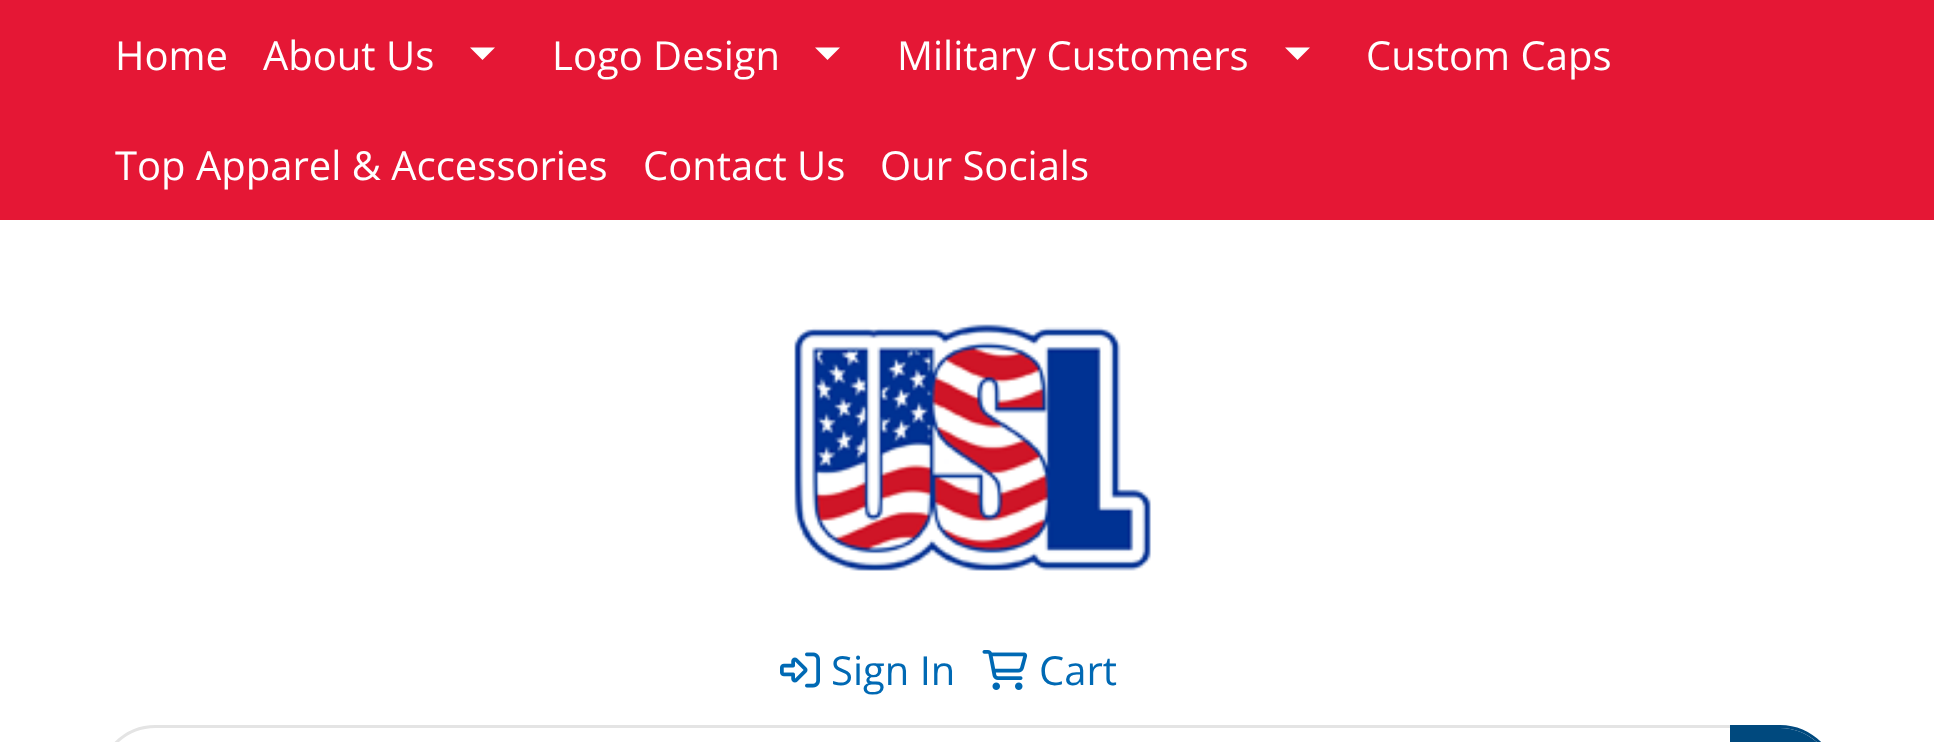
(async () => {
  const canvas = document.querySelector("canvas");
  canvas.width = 1934;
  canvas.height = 742;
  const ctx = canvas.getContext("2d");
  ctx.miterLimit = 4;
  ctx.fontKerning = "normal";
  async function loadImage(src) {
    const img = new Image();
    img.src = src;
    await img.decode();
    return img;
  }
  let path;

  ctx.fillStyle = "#ffffff";
  ctx.fillRect(0, 0, 1934, 742);
  ctx.fillStyle = "#e51735";
  ctx.fillRect(0, 0, 1934, 220);
  ctx.fillStyle = "#ffffff";
  path = new Path2D("M470 47.5H495L482.5 60Z");
  ctx.fill(path);
  path = new Path2D("M815 47.5H840L827.5 60Z");
  ctx.fill(path);
  path = new Path2D("M1285 47.5H1310L1297.5 60Z");
  ctx.fill(path);
  ctx.drawImage(await loadImage("img/1.png"), 794, 324, 357, 247);
  ctx.drawImage(await loadImage("img/2.png"), 780, 652, 40, 36);
  ctx.drawImage(await loadImage("img/3.png"), 982, 650, 46, 40);
  path = new Path2D("M155.5 726.5H1731.5V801.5H155.5C124.5 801.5 99.5 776.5 99.5 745.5V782.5C99.5 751.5 124.5 726.5 155.5 726.5Z");
  ctx.strokeStyle = "#e4e4e4";
  ctx.lineWidth = 3;
  ctx.stroke(path);
  ctx.fillStyle = "#00497e";
  path = new Path2D("M1730 728H1780C1810.5 728 1835 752.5 1835 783V742C1835 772.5 1810.5 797 1780 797H1730Z");
  ctx.fill(path);
  path = new Path2D("M1730 725H1780C1812 725 1838 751 1838 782C1838 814 1812 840 1780 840H1730ZM1730 728H1780C1810 728 1835 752 1835 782C1835 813 1810 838 1780 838H1730Z");
  ctx.fill(path, "evenodd");
  ctx.font = "40px Open Sans";
  ctx.fillStyle = "#ffffff";
  for (const [text, x, y] of [
    ["Home", 115, 70],
    ["About Us", 263, 70],
    ["Logo Design", 552, 70],
    ["Military Customers", 897, 70],
    ["Custom Caps", 1366, 70],
    ["Top Apparel & Accessories", 115, 180],
    ["Contact Us", 643, 180],
    ["Our Socials", 880, 180],
  ]) {
    ctx.fillText(text, x, y);
  }
  ctx.fillStyle = "#0069b4";
  ctx.fillText("Sign In", 831, 685);
  ctx.fillText("Cart", 1039, 685);
})();
